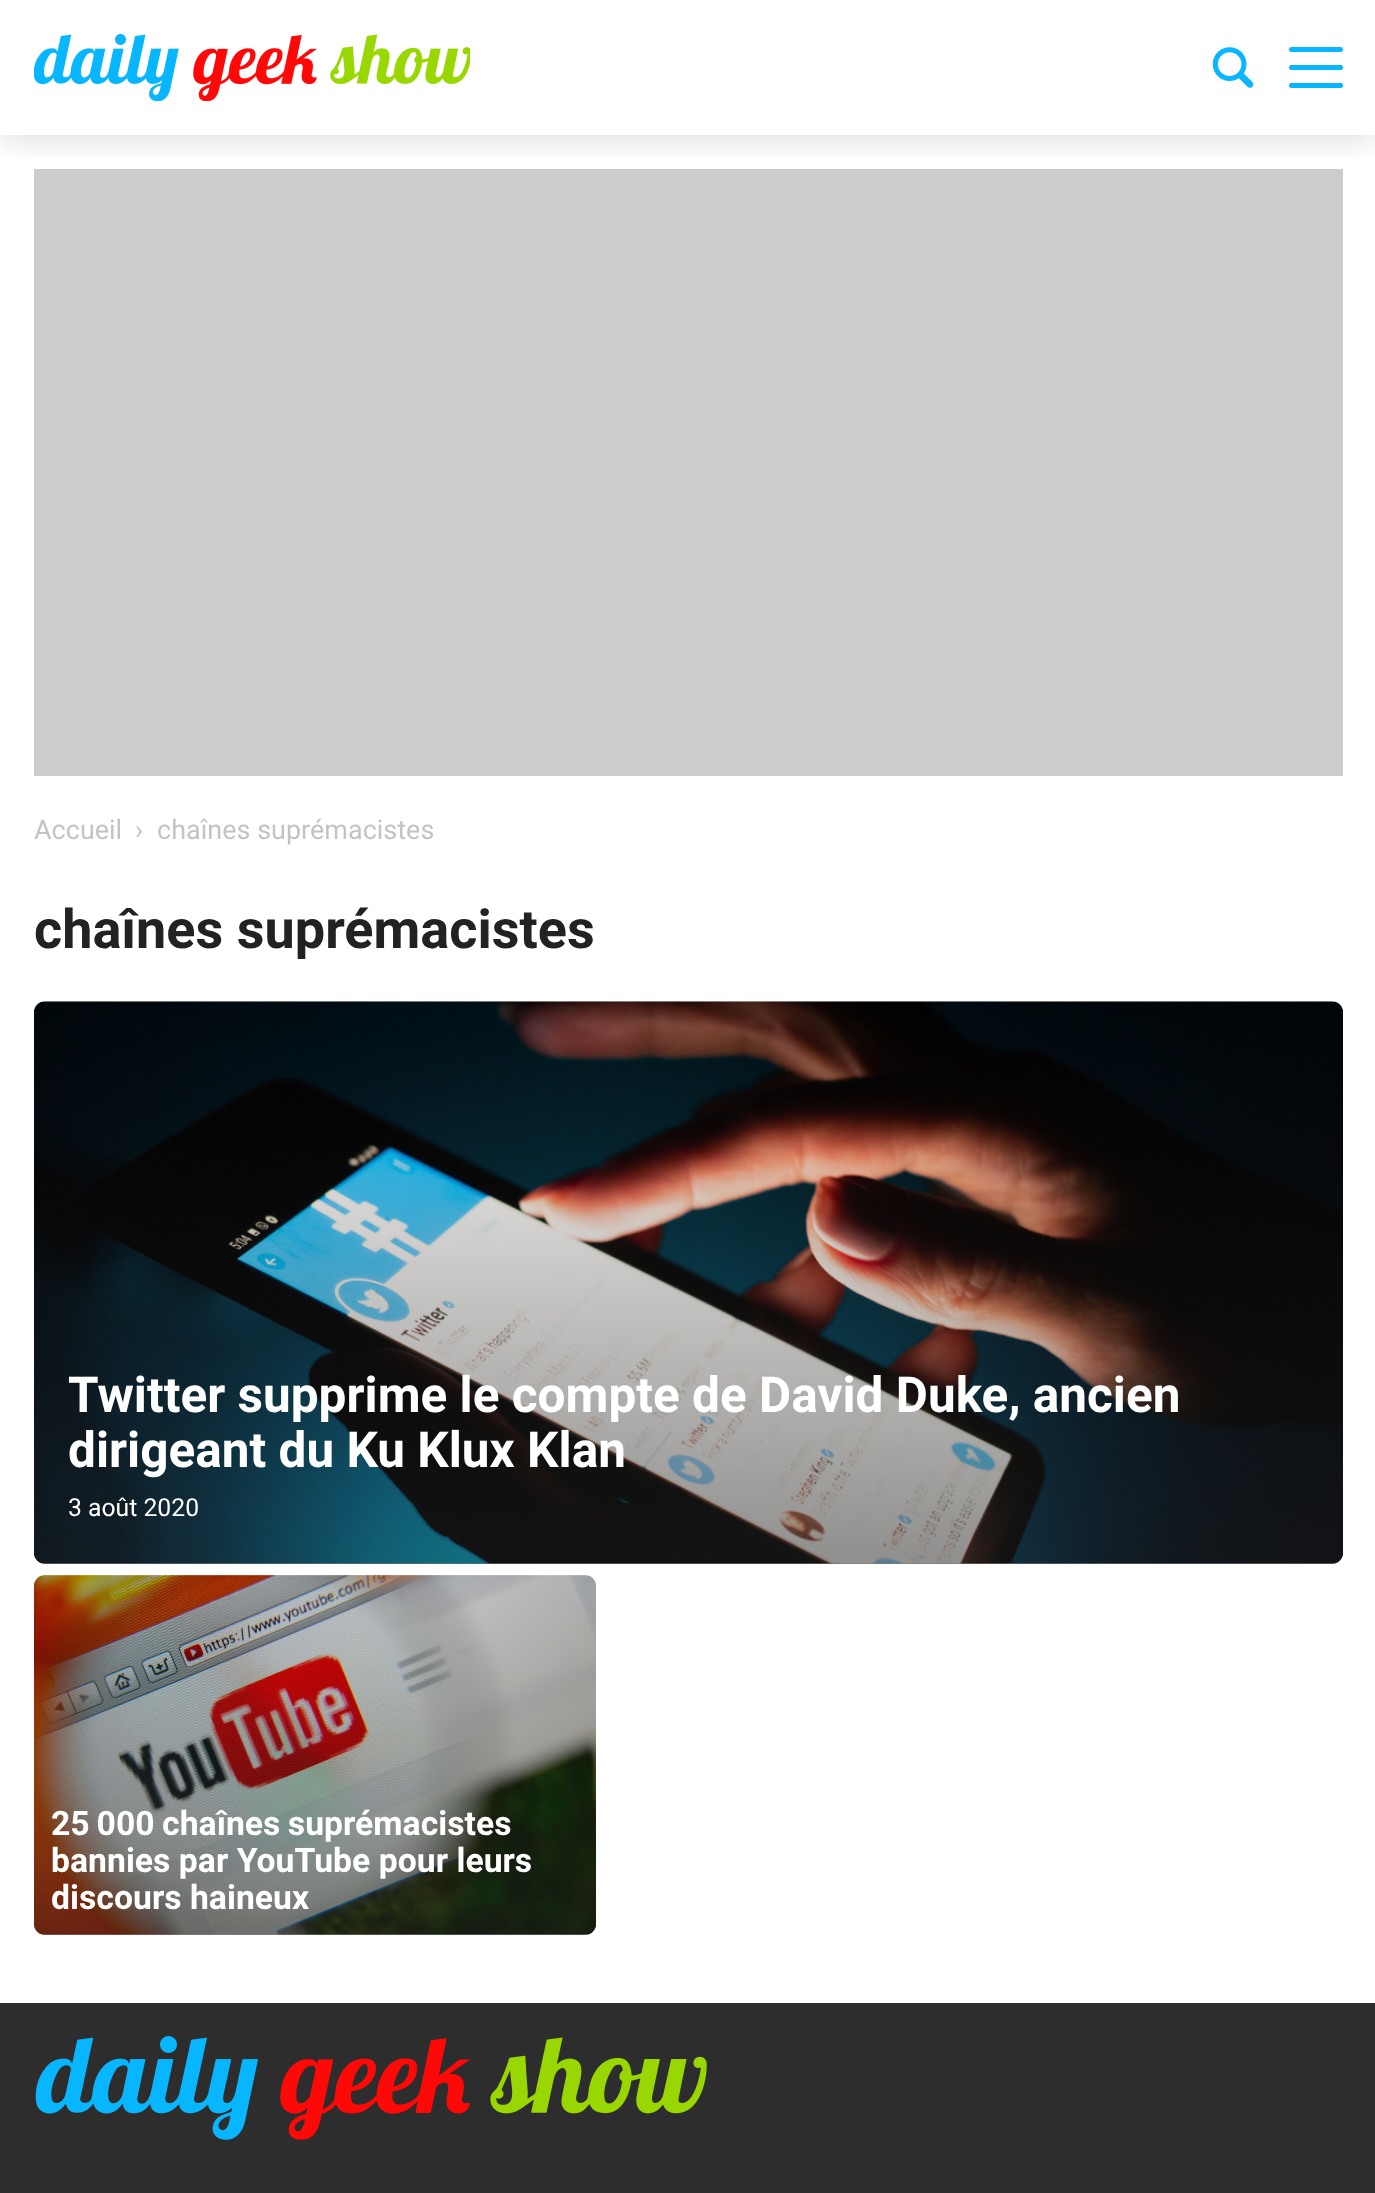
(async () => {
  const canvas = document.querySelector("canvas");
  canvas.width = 1375;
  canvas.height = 2193;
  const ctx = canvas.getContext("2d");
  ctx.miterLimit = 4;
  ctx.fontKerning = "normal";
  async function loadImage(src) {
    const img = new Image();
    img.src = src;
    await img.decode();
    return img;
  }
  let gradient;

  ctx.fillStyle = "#ffffff";
  ctx.fillRect(0, 0, 1375, 2193);
  ctx.fillStyle = "#cccccc";
  ctx.fillRect(34, 169, 1309, 607);
  ctx.save();
  ctx.beginPath();
  ctx.rect(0, 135, 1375, 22);
  ctx.clip();
  ctx.fillStyle = "rgba(34, 34, 34, 0.2)";
  ctx.filter = "blur(17px)";
  ctx.beginPath();
  ctx.rect(0, 0, 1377, 135);
  ctx.fill();
  ctx.filter = "none";
  ctx.restore();
  ctx.drawImage(await loadImage("img/1.png"), 34, 34, 436, 67);
  ctx.drawImage(await loadImage("img/2.png"), 1212, 47, 42, 41);
  ctx.fillStyle = "#08b5ff";
  ctx.beginPath();
  ctx.roundRect(1289, 65, 54, 5, 2.5);
  ctx.fill();
  ctx.beginPath();
  ctx.roundRect(1289, 47, 54, 5, 2.5);
  ctx.fill();
  ctx.beginPath();
  ctx.roundRect(1289, 83, 54, 5, 2.5);
  ctx.fill();
  ctx.fillStyle = "#cccccc";
  ctx.beginPath();
  ctx.roundRect(34, 1001, 1309, 563, 11);
  ctx.fill();
  ctx.drawImage(await loadImage("img/3.png"), 34, 1001, 1309, 563);
  gradient = ctx.createLinearGradient(689, 1001, 689, 1564);
  gradient.addColorStop(0, "rgba(34, 34, 34, 0)");
  gradient.addColorStop(1, "rgba(34, 34, 34, 0.5)");
  ctx.fillStyle = gradient;
  ctx.beginPath();
  ctx.roundRect(34, 1001, 1309, 563, 11);
  ctx.fill();
  ctx.fillStyle = "#cccccc";
  ctx.beginPath();
  ctx.roundRect(34, 1575, 562, 360, 11);
  ctx.fill();
  ctx.drawImage(await loadImage("img/4.png"), 34, 1575, 562, 360);
  gradient = ctx.createLinearGradient(315, 1575, 315, 1935);
  gradient.addColorStop(0, "rgba(34, 34, 34, 0)");
  gradient.addColorStop(1, "rgba(34, 34, 34, 0.5)");
  ctx.fillStyle = gradient;
  ctx.beginPath();
  ctx.roundRect(34, 1575, 562, 360, 11);
  ctx.fill();
  ctx.fillStyle = "#2d2d2d";
  ctx.fillRect(0, 2003, 1375, 190);
  ctx.drawImage(await loadImage("img/5.png"), 35, 2036, 672, 104);
  ctx.font = "27px Roboto";
  ctx.fillStyle = "#c3c3c3";
  for (const [text, x, y] of [
    ["Accueil", 34, 839],
    ["›", 135, 839],
    ["chaînes suprémacistes", 157, 839],
  ]) {
    ctx.fillText(text, x, y);
  }
  ctx.font = "bold 54px Roboto";
  ctx.fillStyle = "#222222";
  ctx.fillText("chaînes suprémacistes", 34, 948);
  ctx.font = "bold 49.5px Roboto";
  ctx.fillStyle = "#ffffff";
  ctx.fillText("Twitter supprime le compte de David Duke, ancien", 68, 1412);
  ctx.fillText("dirigeant du Ku Klux Klan", 68, 1467);
  ctx.font = "24.75px Roboto";
  ctx.fillText("3 août 2020", 68, 1516);
  ctx.wordSpacing = "-1px";
  ctx.font = "bold 33.75px Roboto";
  ctx.fillText("25 000 chaînes suprémacistes", 51, 1835);
  ctx.wordSpacing = "0px";
  ctx.fillText("bannies par YouTube pour leurs", 51, 1872);
  ctx.fillText("discours haineux", 51, 1909);
})();
